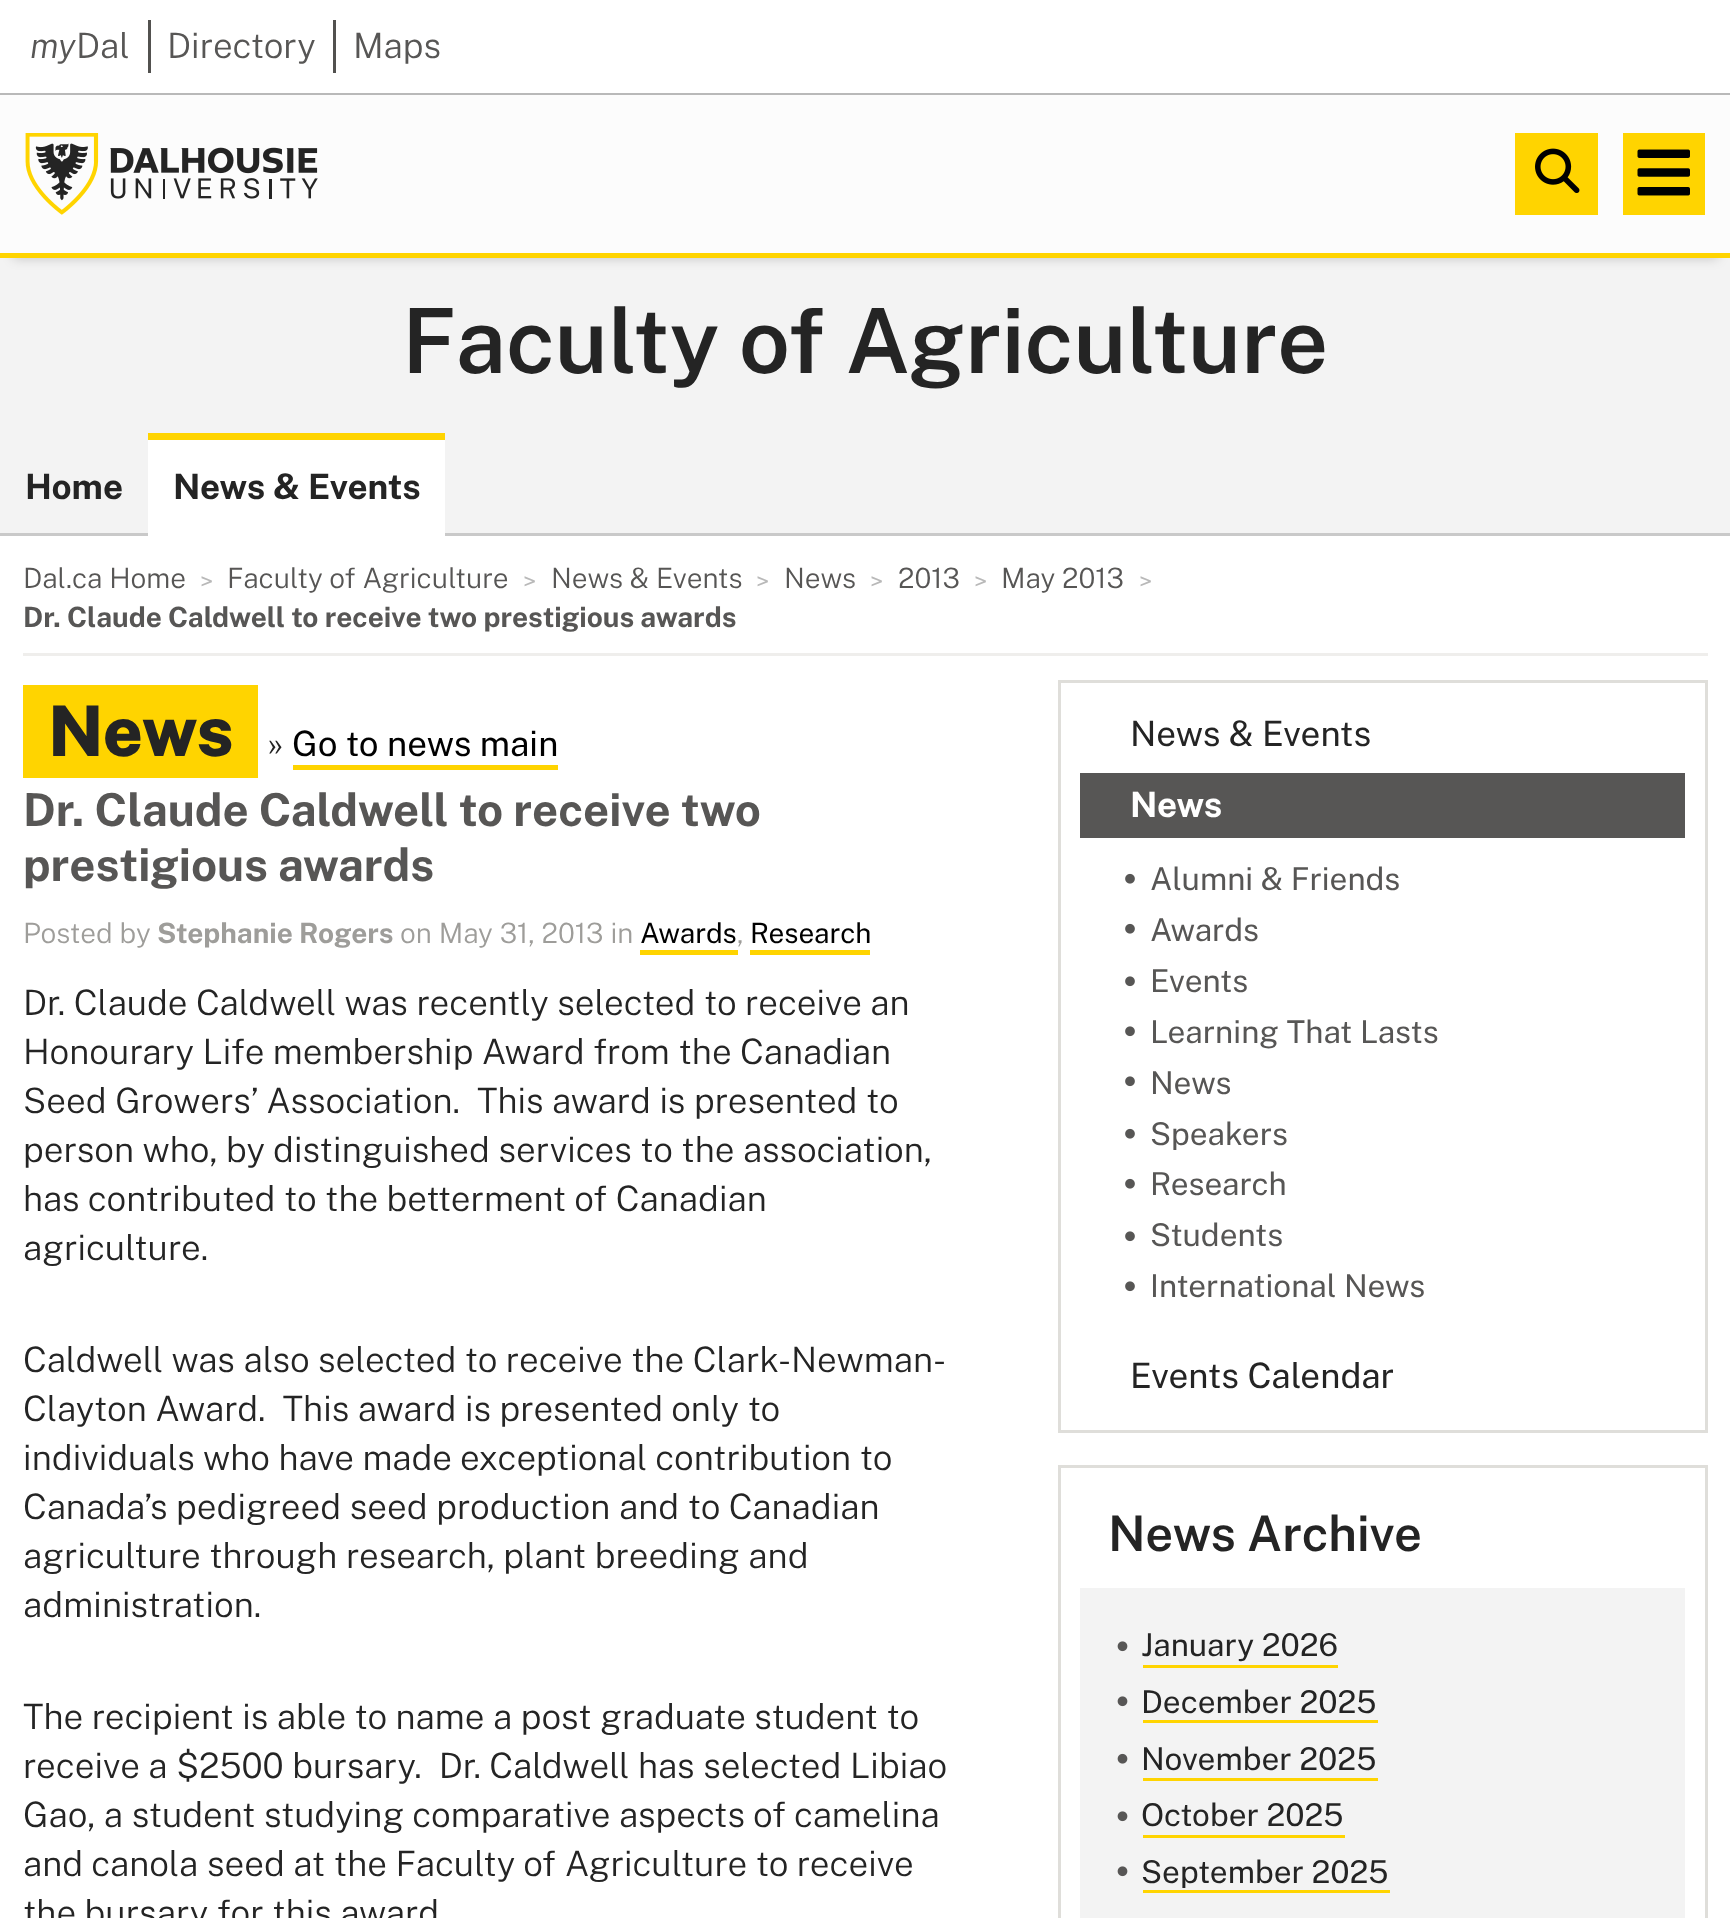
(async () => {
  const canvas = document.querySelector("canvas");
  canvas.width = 1730;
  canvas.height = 1918;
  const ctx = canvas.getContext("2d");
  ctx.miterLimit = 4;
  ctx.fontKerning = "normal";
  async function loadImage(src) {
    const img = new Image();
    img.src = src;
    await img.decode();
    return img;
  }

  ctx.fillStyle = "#ffffff";
  ctx.fillRect(0, 0, 1730, 1918);
  for (const [x, y, w, h, color] of [
    [0, 93, 1730, 2, "#b9b9b9"],
    [148, 20, 3, 53, "#52514f"],
    [333, 20, 3, 53, "#52514f"],
    [0, 258, 1730, 275, "#f3f3f3"],
  ]) {
    ctx.fillStyle = color;
    ctx.fillRect(x, y, w, h);
  }
  ctx.fillStyle = "rgba(0, 0, 0, 0.2)";
  ctx.filter = "blur(6px)";
  ctx.beginPath();
  ctx.rect(13, 120, 1705, 138);
  ctx.fill();
  ctx.filter = "none";
  ctx.fillStyle = "#fcfcfc";
  ctx.fillRect(0, 95, 1730, 158);
  ctx.fillStyle = "#ffd400";
  ctx.fillRect(0, 253, 1730, 5);
  ctx.drawImage(await loadImage("img/1.png"), 25, 133, 293, 82);
  ctx.fillRect(1515, 133, 83, 82);
  ctx.drawImage(await loadImage("img/2.png"), 1535, 148, 45, 45);
  ctx.fillRect(1623, 133, 82, 82);
  ctx.drawImage(await loadImage("img/3.png"), 1637, 149, 53, 47);
  for (const [x, y, w, h, color] of [
    [0, 533, 1730, 3, "#c9c9c9"],
    [148, 433, 297, 7, "#ffd400"],
    [148, 440, 297, 96, "#ffffff"],
    [23, 653, 1685, 3, "#efeeec"],
    [23, 685, 235, 93, "#ffd400"],
    [293, 765, 265, 5, "#ffd400"],
    [640, 950, 98, 5, "#ffd400"],
    [750, 950, 120, 5, "#ffd400"],
  ]) {
    ctx.fillStyle = color;
    ctx.fillRect(x, y, w, h);
  }
  ctx.strokeStyle = "#dfdeda";
  ctx.lineWidth = 3;
  ctx.strokeRect(1059.5, 681.5, 647, 750);
  ctx.fillStyle = "#575655";
  ctx.fillRect(1080, 773, 605, 65);
  ctx.drawImage(await loadImage("img/4.png"), 1125, 873, 10, 11);
  ctx.drawImage(await loadImage("img/4.png"), 1125, 923, 10, 11);
  ctx.drawImage(await loadImage("img/5.png"), 1125, 976, 10, 11);
  ctx.drawImage(await loadImage("img/5.png"), 1125, 1026, 10, 11);
  ctx.drawImage(await loadImage("img/5.png"), 1125, 1076, 10, 11);
  ctx.drawImage(await loadImage("img/4.png"), 1125, 1128, 10, 11);
  ctx.drawImage(await loadImage("img/4.png"), 1125, 1178, 10, 11);
  ctx.drawImage(await loadImage("img/5.png"), 1125, 1231, 10, 11);
  ctx.drawImage(await loadImage("img/5.png"), 1125, 1281, 10, 11);
  ctx.strokeRect(1059.5, 1466.5, 647, 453);
  ctx.fillStyle = "#f3f3f3";
  ctx.fillRect(1080, 1588, 605, 330);
  ctx.drawImage(await loadImage("img/6.png"), 1117, 1641, 11, 11);
  ctx.fillStyle = "#ffd400";
  ctx.fillRect(1143, 1665, 195, 3);
  ctx.drawImage(await loadImage("img/6.png"), 1117, 1696, 11, 11);
  ctx.fillRect(1143, 1720, 235, 3);
  ctx.drawImage(await loadImage("img/7.png"), 1117, 1753, 11, 11);
  ctx.fillRect(1143, 1778, 235, 3);
  ctx.drawImage(await loadImage("img/6.png"), 1117, 1811, 11, 11);
  ctx.fillRect(1143, 1835, 202, 3);
  ctx.drawImage(await loadImage("img/6.png"), 1117, 1866, 11, 11);
  ctx.fillRect(1143, 1890, 247, 3);
  ctx.font = "italic 300 35px Public Sans";
  ctx.fillStyle = "#575655";
  ctx.fillText("my", 30, 58);
  ctx.font = "300 35px Public Sans";
  for (const [text, x, y] of [
    ["Dal", 76, 58],
    ["Directory", 167, 58],
    ["Maps", 353, 58],
  ]) {
    ctx.fillText(text, x, y);
  }
  ctx.font = "600 90px Public Sans";
  ctx.fillStyle = "#242424";
  ctx.fillText("Faculty of Agriculture", 402, 373);
  ctx.font = "bold 35px Public Sans";
  ctx.fillText("Home", 25, 499);
  ctx.fillText("News & Events", 173, 499);
  ctx.font = "300 28px Public Sans";
  ctx.fillStyle = "#575655";
  ctx.fillText("Dal.ca Home", 23, 588);
  ctx.font = "300 25px Public Sans";
  ctx.fillStyle = "#b9b9b9";
  ctx.fillText(">", 200, 590);
  ctx.font = "300 28px Public Sans";
  ctx.fillStyle = "#575655";
  ctx.fillText("Faculty of Agriculture", 227, 588);
  ctx.font = "300 25px Public Sans";
  ctx.fillStyle = "#b9b9b9";
  ctx.fillText(">", 523, 590);
  ctx.font = "300 28px Public Sans";
  ctx.fillStyle = "#575655";
  ctx.fillText("News & Events", 551, 588);
  ctx.font = "300 25px Public Sans";
  ctx.fillStyle = "#b9b9b9";
  ctx.fillText(">", 756, 590);
  ctx.font = "300 28px Public Sans";
  ctx.fillStyle = "#575655";
  ctx.fillText("News", 784, 588);
  ctx.font = "300 25px Public Sans";
  ctx.fillStyle = "#b9b9b9";
  ctx.fillText(">", 870, 590);
  ctx.font = "300 28px Public Sans";
  ctx.fillStyle = "#575655";
  ctx.fillText("2013", 898, 588);
  ctx.font = "300 25px Public Sans";
  ctx.fillStyle = "#b9b9b9";
  ctx.fillText(">", 974, 590);
  ctx.font = "300 28px Public Sans";
  ctx.fillStyle = "#575655";
  ctx.fillText("May 2013", 1001, 588);
  ctx.font = "300 25px Public Sans";
  ctx.fillStyle = "#b9b9b9";
  ctx.fillText(">", 1139, 590);
  ctx.font = "bold 28px Public Sans";
  ctx.fillStyle = "#575655";
  ctx.fillText("Dr. Claude Caldwell to receive two prestigious awards", 23, 627);
  ctx.font = "800 70px Public Sans";
  ctx.fillStyle = "#242424";
  ctx.fillText("News", 48, 756);
  ctx.font = "300 35px Public Sans";
  ctx.fillText("»", 267, 756);
  ctx.font = "35px Public Sans";
  ctx.fillStyle = "#000000";
  ctx.fillText("Go to news main", 292, 756);
  ctx.font = "bold 45.5px Public Sans";
  ctx.fillStyle = "#575655";
  ctx.fillText("Dr. Claude Caldwell to receive two", 23, 826);
  ctx.fillText("prestigious awards", 23, 881);
  ctx.font = "300 28px Public Sans";
  ctx.fillStyle = "#9e9d9a";
  ctx.fillText("Posted by", 23, 943);
  ctx.font = "bold 28px Public Sans";
  ctx.fillText("Stephanie Rogers", 157, 943);
  ctx.font = "300 28px Public Sans";
  ctx.fillText("on May 31, 2013 in", 400, 943);
  ctx.font = "28px Public Sans";
  ctx.fillStyle = "#000000";
  ctx.fillText("Awards", 640, 943);
  ctx.font = "300 28px Public Sans";
  ctx.fillStyle = "#9e9d9a";
  ctx.fillText(",", 737, 943);
  ctx.font = "28px Public Sans";
  ctx.fillStyle = "#000000";
  ctx.fillText("Research", 750, 943);
  ctx.font = "300 35px Public Sans";
  ctx.fillStyle = "#242424";
  for (const [text, x, y] of [
    ["Dr. Claude Caldwell was recently selected to receive an", 23, 1015],
    ["Honourary Life membership Award from the Canadian", 23, 1064],
    ["Seed Growers’ Association.  This award is presented to", 23, 1113],
    ["person who, by distinguished services to the association,", 23, 1162],
    ["has contributed to the betterment of Canadian", 23, 1211],
    ["agriculture.", 23, 1260],
    ["Caldwell was also selected to receive the Clark-Newman-", 23, 1372],
    ["Clayton Award.  This award is presented only to", 23, 1421],
    ["individuals who have made exceptional contribution to", 23, 1470],
    ["Canada’s pedigreed seed production and to Canadian", 23, 1519],
    ["agriculture through research, plant breeding and", 23, 1568],
    ["administration.", 23, 1617],
    ["The recipient is able to name a post graduate student to", 23, 1729],
    ["receive a $2500 bursary.  Dr. Caldwell has selected Libiao", 23, 1778],
    ["Gao, a student studying comparative aspects of camelina", 23, 1827],
    ["and canola seed at the Faculty of Agriculture to receive", 23, 1876],
    ["the bursary for this award", 23, 1925],
  ]) {
    ctx.fillText(text, x, y);
  }
  ctx.font = "35px Public Sans";
  ctx.fillText("News & Events", 1130, 746);
  ctx.font = "bold 35px Public Sans";
  ctx.fillStyle = "#ffffff";
  ctx.fillText("News", 1130, 817);
  ctx.font = "31.5px Public Sans";
  ctx.fillStyle = "#575655";
  for (const [text, x, y] of [
    ["Alumni & Friends", 1150, 890],
    ["Awards", 1150, 941],
    ["Events", 1150, 992],
    ["Learning That Lasts", 1150, 1043],
    ["News", 1150, 1094],
    ["Speakers", 1150, 1145],
    ["Research", 1150, 1195],
    ["Students", 1150, 1246],
    ["International News", 1150, 1297],
  ]) {
    ctx.fillText(text, x, y);
  }
  ctx.font = "35px Public Sans";
  ctx.fillStyle = "#242424";
  ctx.fillText("Events Calendar", 1130, 1388);
  ctx.font = "600 49px Public Sans";
  ctx.fillText("News Archive", 1108, 1551);
  ctx.font = "31.5px Public Sans";
  for (const [text, x, y] of [
    ["January 2026", 1141, 1656],
    ["December 2025", 1141, 1713],
    ["November 2025", 1141, 1770],
    ["October 2025", 1141, 1826],
    ["September 2025", 1141, 1883],
  ]) {
    ctx.fillText(text, x, y);
  }
})();
